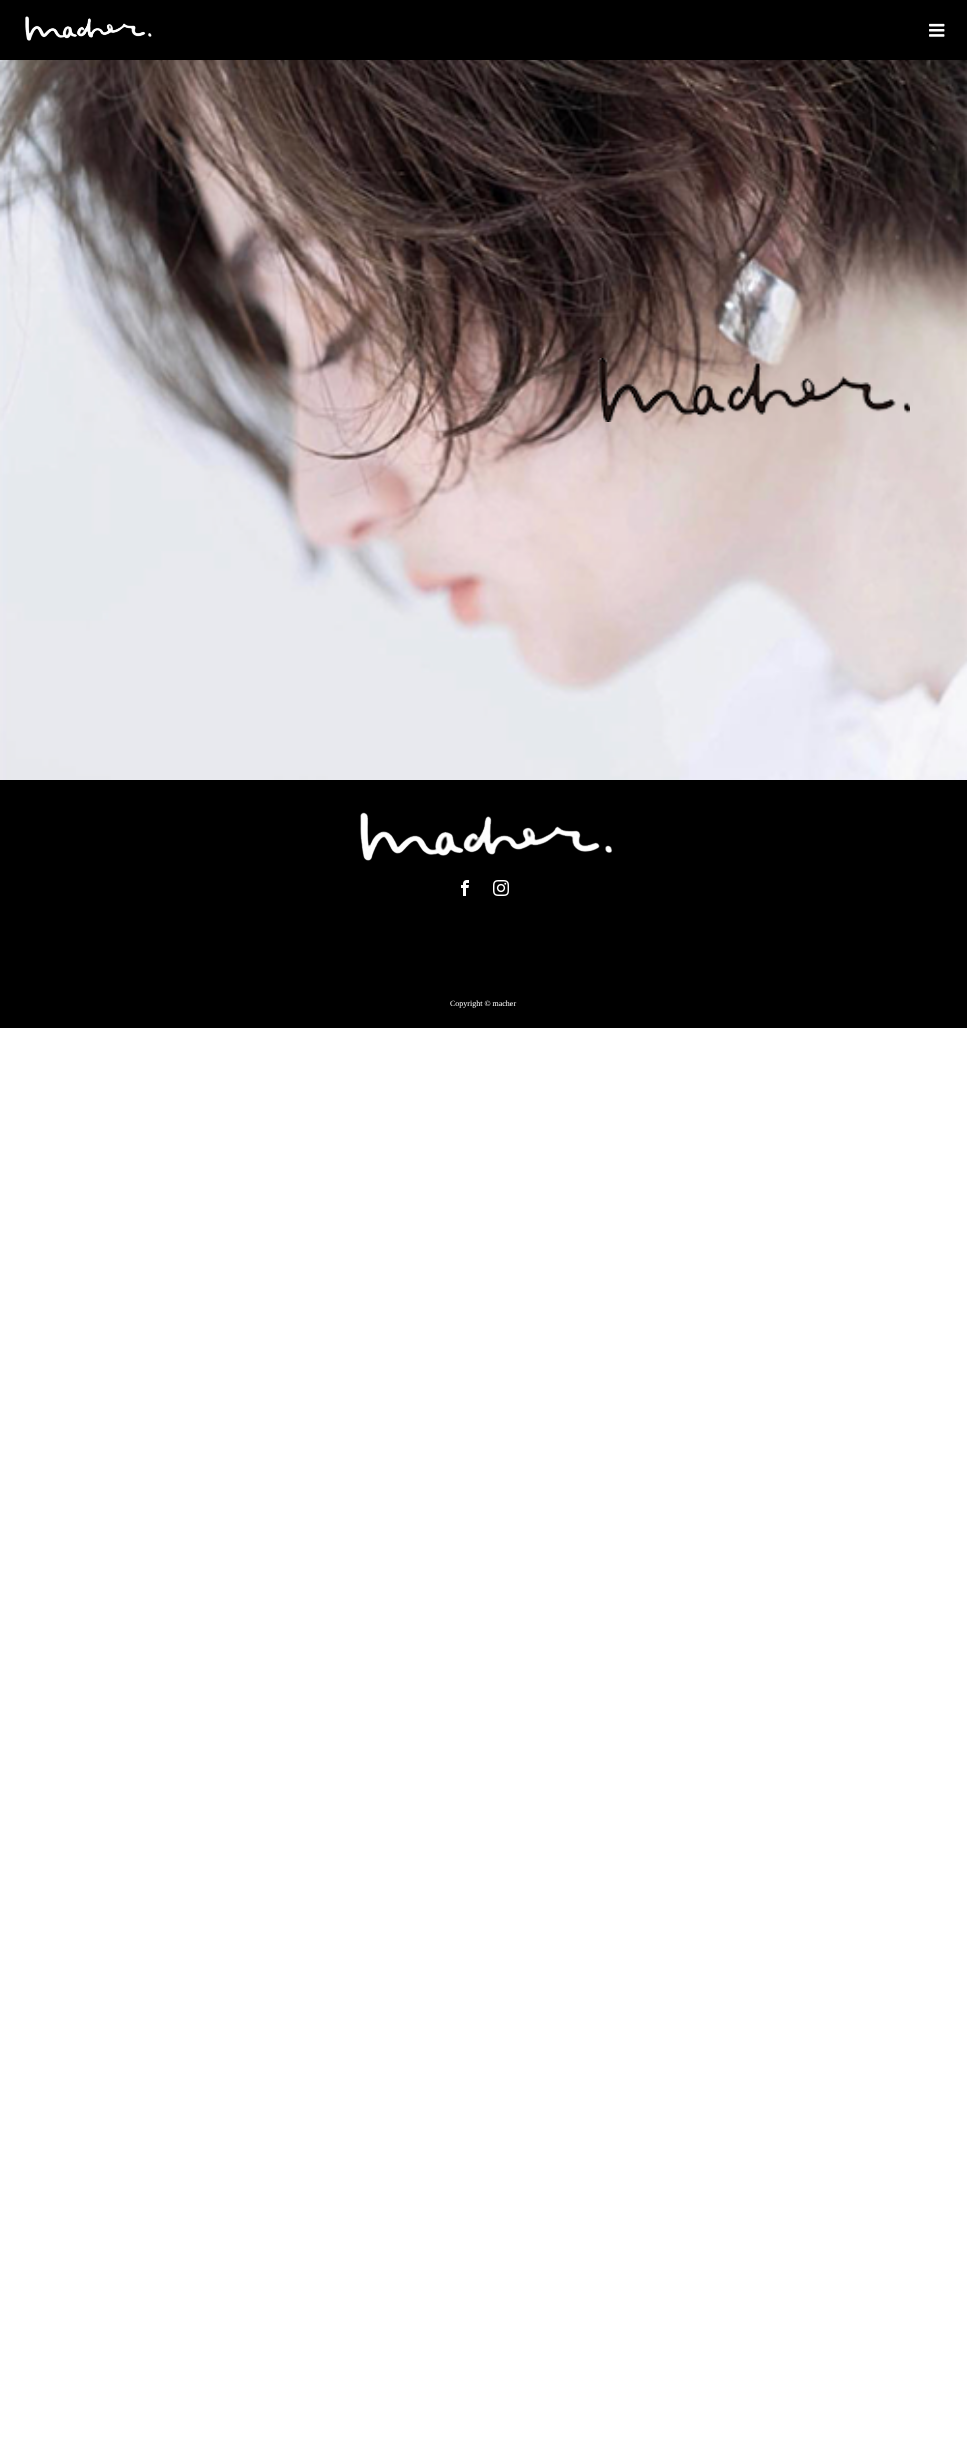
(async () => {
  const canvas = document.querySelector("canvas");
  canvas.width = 967;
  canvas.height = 2437;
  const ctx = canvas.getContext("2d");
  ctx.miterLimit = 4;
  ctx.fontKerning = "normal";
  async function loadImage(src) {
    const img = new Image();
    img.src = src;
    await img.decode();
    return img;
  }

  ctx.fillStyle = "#ffffff";
  ctx.fillRect(0, 0, 967, 2437);
  ctx.fillStyle = "#000000";
  ctx.fillRect(0, 0, 967, 60);
  ctx.drawImage(await loadImage("img/1.png"), 25, 16, 127, 25);
  ctx.drawImage(await loadImage("img/2.png"), 929, 23, 16, 14);
  ctx.drawImage(await loadImage("img/3.png"), 0, 60, 967, 720);
  ctx.drawImage(await loadImage("img/4.png"), 597, 358, 313, 64);
  ctx.fillRect(0, 780, 967, 248);
  ctx.drawImage(await loadImage("img/5.png"), 360, 812, 253, 49);
  ctx.drawImage(await loadImage("img/6.png"), 461, 880, 8, 16);
  ctx.drawImage(await loadImage("img/7.png"), 493, 880, 16, 16);
  ctx.font = "8px Liberation Serif";
  ctx.fillStyle = "#ffffff";
  ctx.fillText("Copyright © macher", 450, 1006);
})();
